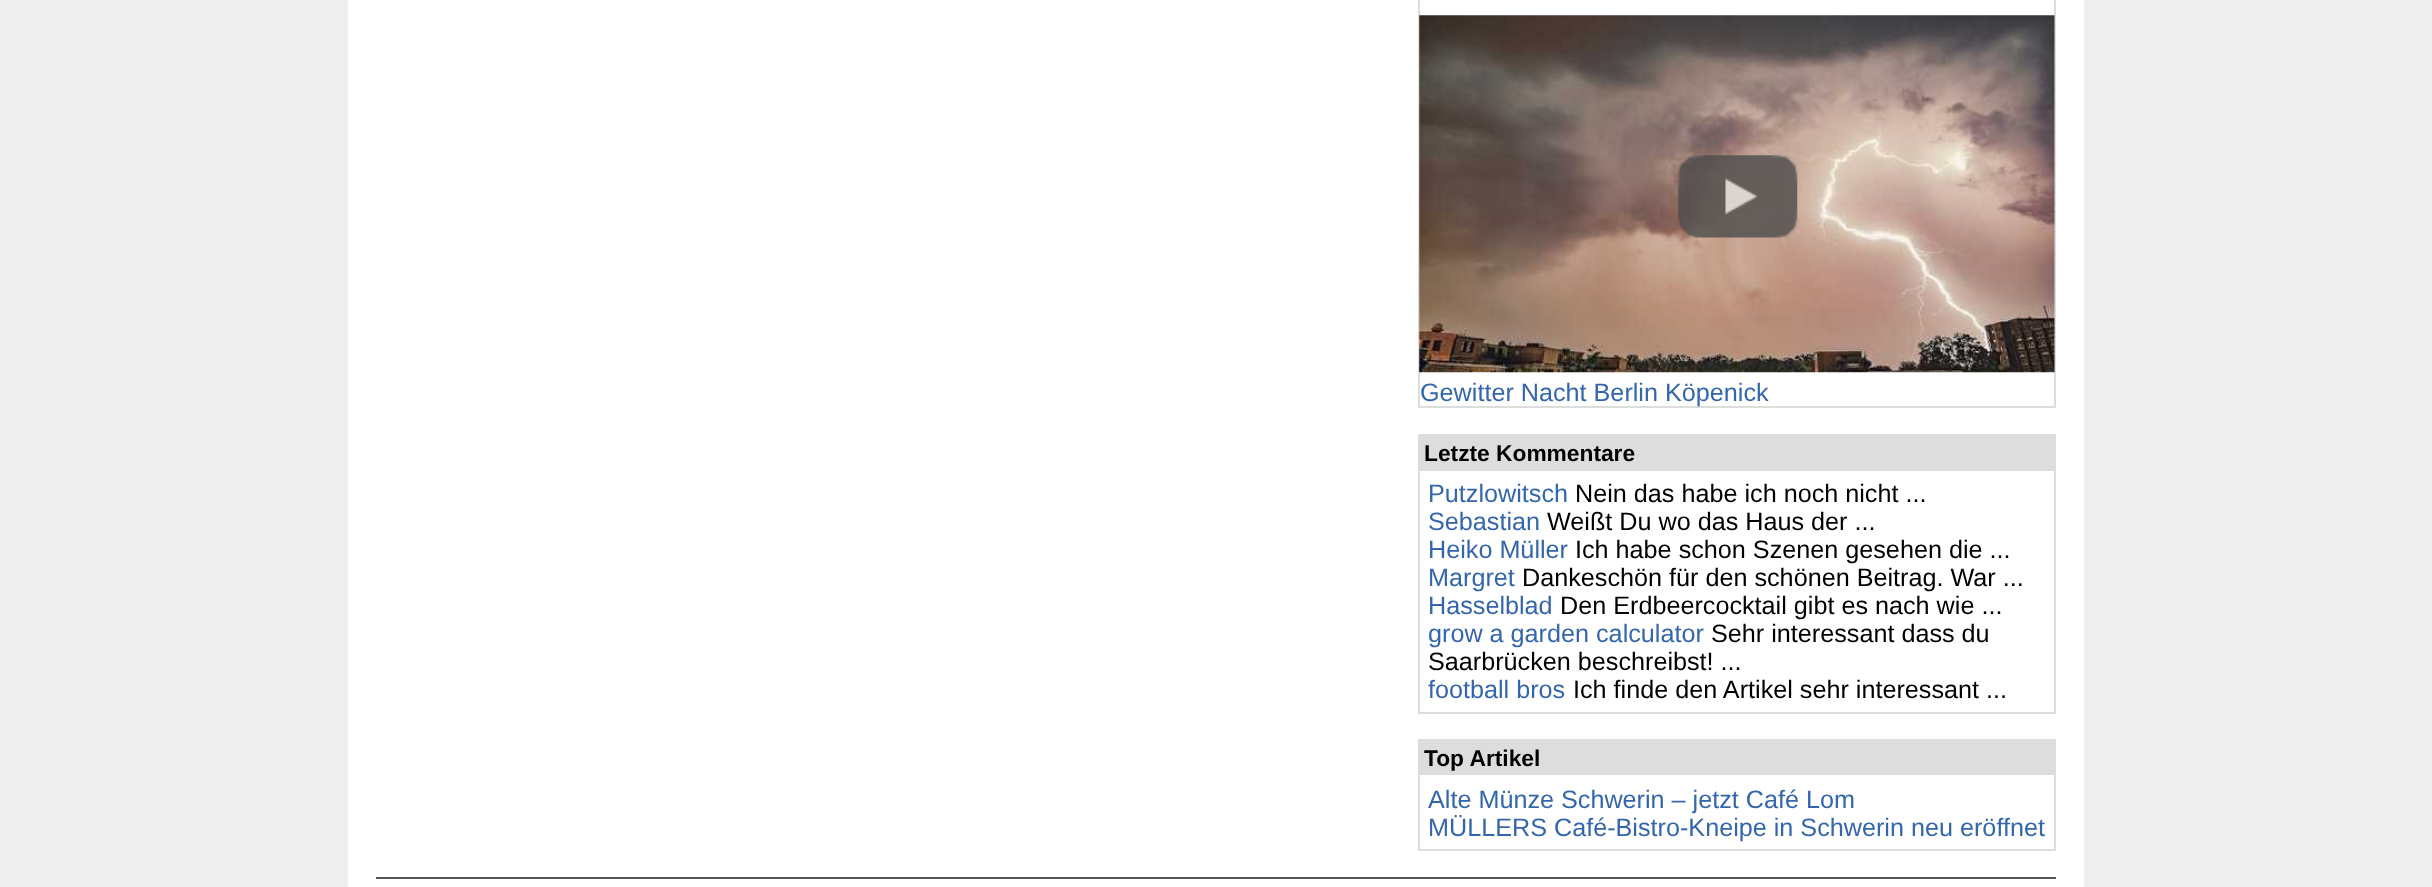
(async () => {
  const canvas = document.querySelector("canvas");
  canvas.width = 2432;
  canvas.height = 887;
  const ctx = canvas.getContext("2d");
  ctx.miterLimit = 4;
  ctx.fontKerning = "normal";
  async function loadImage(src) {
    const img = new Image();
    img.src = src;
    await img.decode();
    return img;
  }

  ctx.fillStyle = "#eeeeee";
  ctx.fillRect(0, 0, 2432, 887);
  ctx.fillStyle = "#ffffff";
  ctx.fillRect(348, 0, 1736, 887);
  ctx.strokeStyle = "#dddddd";
  ctx.lineWidth = 2;
  ctx.strokeRect(1419, -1, 636, 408);
  ctx.drawImage(await loadImage("img/1.png"), 1419, 15, 636, 358);
  ctx.drawImage(await loadImage("img/2.png"), 1678, 155, 120, 83);
  ctx.strokeRect(1419, 435, 636, 278);
  ctx.fillStyle = "#dddddd";
  ctx.fillRect(1420, 436, 634, 35);
  ctx.strokeRect(1419, 740, 636, 110);
  ctx.fillRect(1420, 741, 634, 34);
  ctx.fillStyle = "#555555";
  ctx.fillRect(376, 877, 1680, 2);
  ctx.font = "25.2px Liberation Sans";
  ctx.fillStyle = "#3366aa";
  ctx.fillText("Gewitter Nacht Berlin Köpenick", 1420, 401);
  ctx.font = "bold 22.75px Liberation Sans";
  ctx.fillStyle = "#000000";
  ctx.fillText("Letzte Kommentare", 1424, 461);
  ctx.font = "25.2px Liberation Sans";
  ctx.fillStyle = "#3366aa";
  ctx.fillText("Putzlowitsch", 1428, 502);
  ctx.fillStyle = "#000000";
  ctx.fillText("Nein das habe ich noch nicht ...", 1575, 502);
  ctx.fillStyle = "#3366aa";
  ctx.fillText("Sebastian", 1428, 530);
  ctx.fillStyle = "#000000";
  ctx.fillText("Weißt Du wo das Haus der ...", 1547, 530);
  ctx.fillStyle = "#3366aa";
  ctx.fillText("Heiko Müller", 1428, 558);
  ctx.fillStyle = "#000000";
  ctx.fillText("Ich habe schon Szenen gesehen die ...", 1575, 558);
  ctx.fillStyle = "#3366aa";
  ctx.fillText("Margret", 1428, 586);
  ctx.fillStyle = "#000000";
  ctx.fillText("Dankeschön für den schönen Beitrag. War ...", 1522, 586);
  ctx.fillStyle = "#3366aa";
  ctx.fillText("Hasselblad", 1428, 614);
  ctx.fillStyle = "#000000";
  ctx.fillText("Den Erdbeercocktail gibt es nach wie ...", 1560, 614);
  ctx.fillStyle = "#3366aa";
  ctx.fillText("grow a garden calculator", 1428, 642);
  ctx.fillStyle = "#000000";
  ctx.fillText("Sehr interessant dass du", 1711, 642);
  ctx.fillText("Saarbrücken beschreibst! ...", 1428, 670);
  ctx.fillStyle = "#3366aa";
  ctx.fillText("football bros", 1428, 698);
  ctx.fillStyle = "#000000";
  ctx.fillText("Ich finde den Artikel sehr interessant ...", 1573, 698);
  ctx.font = "bold 22.75px Liberation Sans";
  ctx.fillText("Top Artikel", 1424, 766);
  ctx.font = "25.2px Liberation Sans";
  ctx.fillStyle = "#3366aa";
  ctx.fillText("Alte Münze Schwerin – jetzt Café Lom", 1428, 808);
  ctx.fillText("MÜLLERS Café-Bistro-Kneipe in Schwerin neu eröffnet", 1428, 836);
})();
